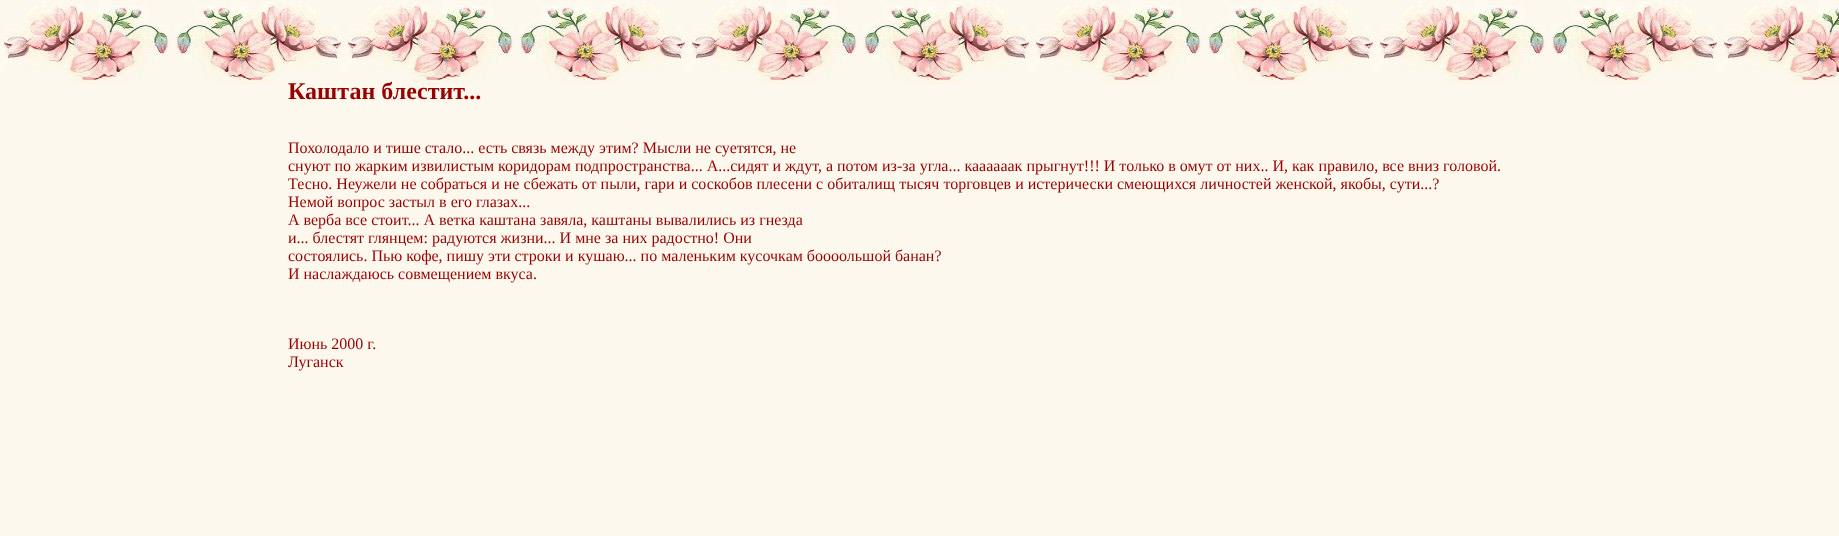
(async () => {
  const canvas = document.querySelector("canvas");
  canvas.width = 1839;
  canvas.height = 536;
  const ctx = canvas.getContext("2d");
  ctx.miterLimit = 4;
  ctx.fontKerning = "normal";
  async function loadImage(src) {
    const img = new Image();
    img.src = src;
    await img.decode();
    return img;
  }

  ctx.fillStyle = "#ffffff";
  ctx.fillRect(0, 0, 1839, 536);
  ctx.drawImage(await loadImage("img/1.png"), 0, 0, 1839, 536);
  ctx.font = "bold 24px Liberation Serif";
  ctx.fillStyle = "#990000";
  ctx.fillText("Каштан блестит...", 288, 99);
  ctx.font = "16px Liberation Serif";
  for (const [text, x, y] of [
    ["Похолодало и тише стало... есть связь между этим? Мысли не суетятся, не", 288, 153],
    ["снуют по жарким извилистым коридорам подпространства... А...сидят и ждут, а потом из-за угла... каааааак прыгнут!!! И только в омут от них.. И, как правило, все вниз головой.", 288, 171],
    ["Тесно. Неужели не собраться и не сбежать от пыли, гари и соскобов плесени с обиталищ тысяч торговцев и истерически смеющихся личностей женской, якобы, сути...?", 288, 189],
    ["Немой вопрос застыл в его глазах...", 288, 207],
    ["А верба все стоит... А ветка каштана завяла, каштаны вывалились из гнезда", 288, 225],
    ["и... блестят глянцем: радуются жизни... И мне за них радостно! Они", 288, 243],
    ["состоялись. Пью кофе, пишу эти строки и кушаю... по маленьким кусочкам боооольшой банан?", 288, 261],
    ["И наслаждаюсь совмещением вкуса.", 288, 279],
    ["Июнь 2000 г.", 288, 349],
    ["Луганск", 288, 367],
  ]) {
    ctx.fillText(text, x, y);
  }
})();
